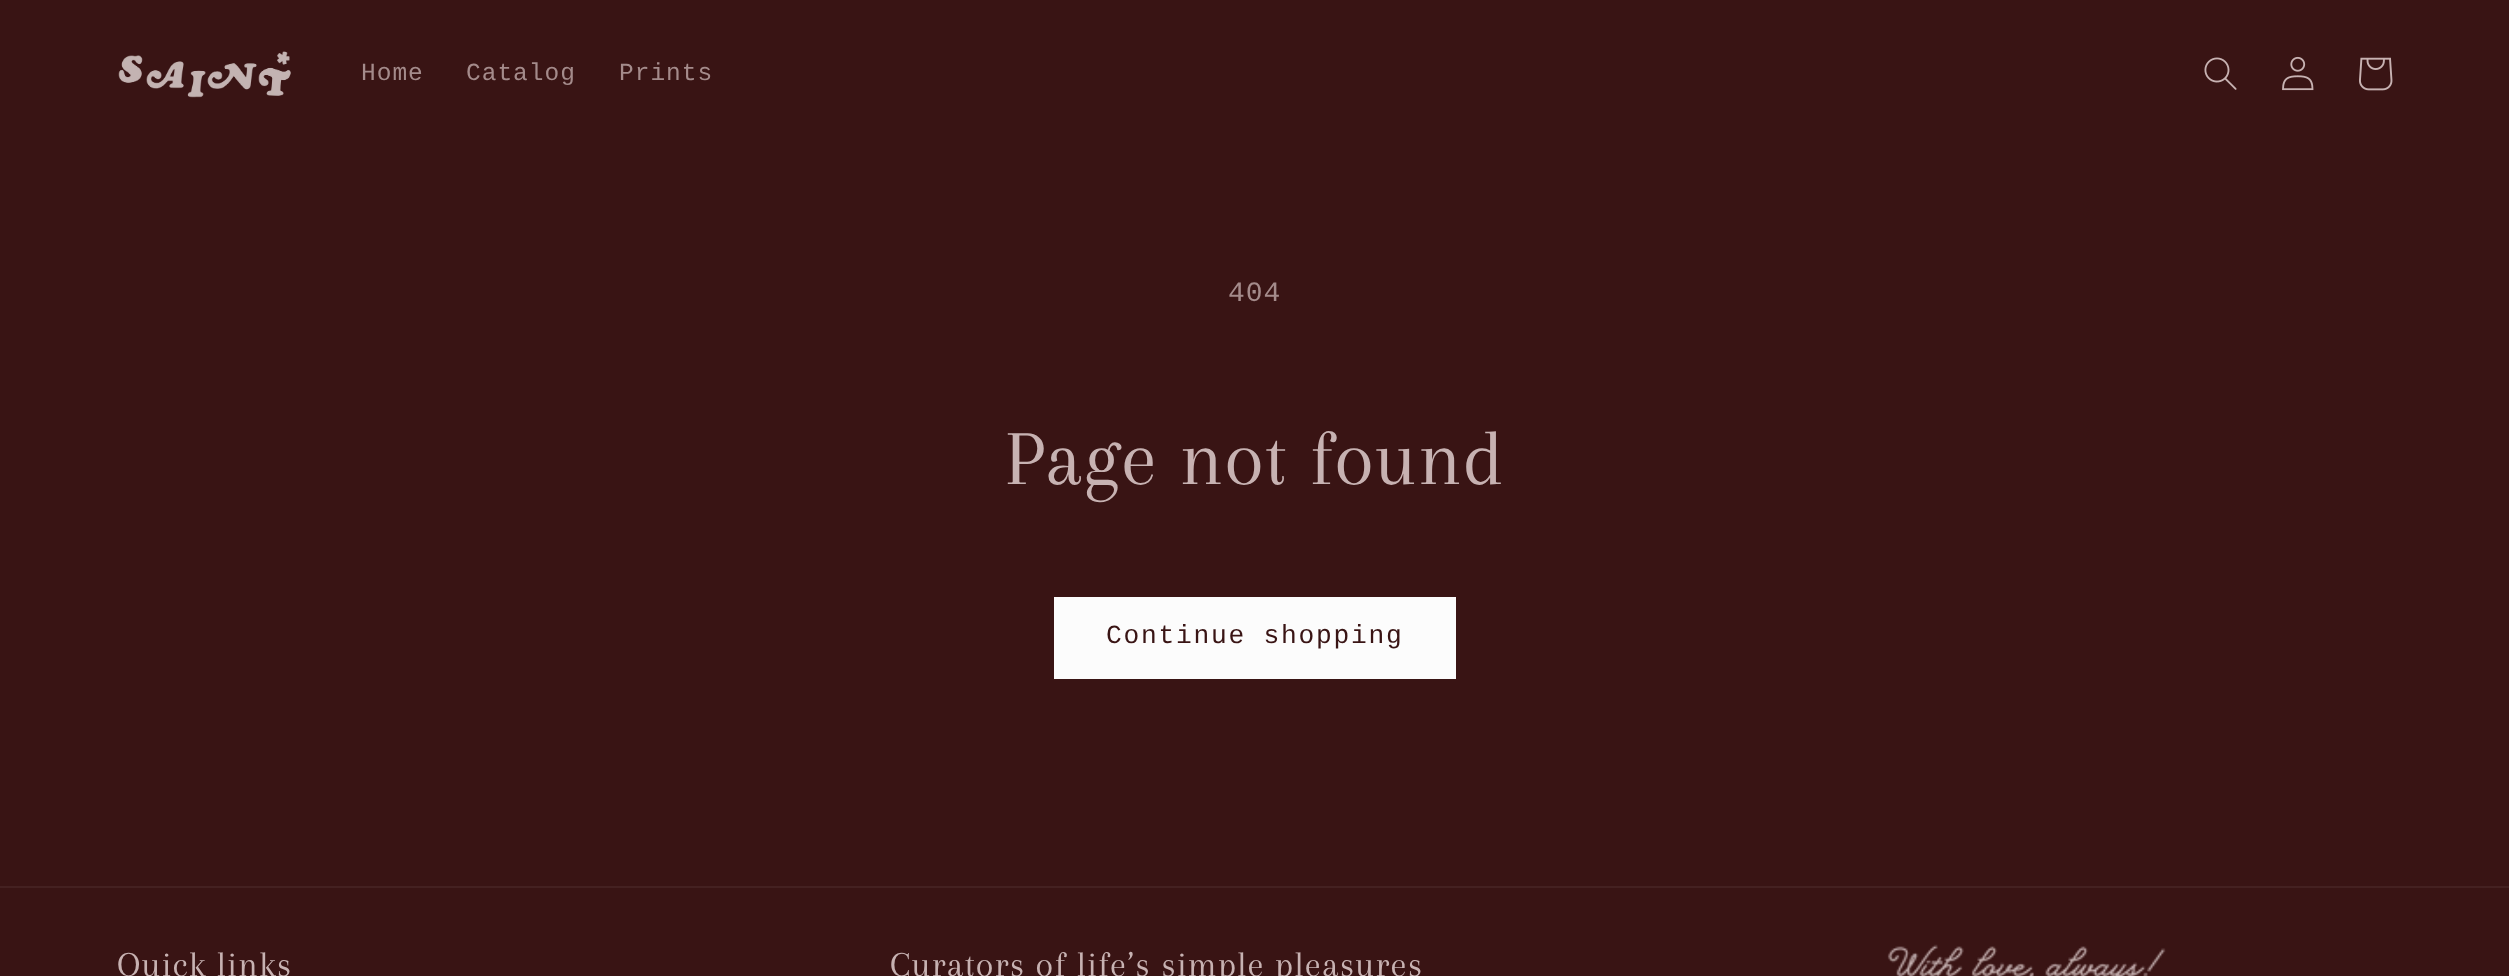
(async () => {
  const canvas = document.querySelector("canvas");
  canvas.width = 2509;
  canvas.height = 976;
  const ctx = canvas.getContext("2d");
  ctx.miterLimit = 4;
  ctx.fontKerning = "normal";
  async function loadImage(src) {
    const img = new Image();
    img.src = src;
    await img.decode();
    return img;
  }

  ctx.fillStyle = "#391414";
  ctx.fillRect(0, 0, 2509, 976);
  ctx.drawImage(await loadImage("img/1.png"), 118, 51, 173, 47);
  ctx.drawImage(await loadImage("img/2.png"), 2204, 57, 33, 33);
  ctx.drawImage(await loadImage("img/3.png"), 2282, 56, 32, 35);
  ctx.drawImage(await loadImage("img/4.png"), 2359, 57, 34, 34);
  ctx.fillStyle = "#fcfcfc";
  ctx.fillRect(1054, 597, 402, 82);
  ctx.fillStyle = "#442121";
  ctx.fillRect(0, 886, 2509, 2);
  ctx.drawImage(await loadImage("img/5.png"), 1887, 944, 279, 32);
  ctx.letterSpacing = "1px";
  ctx.font = "24.5px Liberation Mono";
  ctx.fillStyle = "#a48b8b";
  for (const [text, x, y] of [
    ["Home", 361, 80],
    ["Catalog", 466, 80],
    ["Prints", 619, 80],
  ]) {
    ctx.fillText(text, x, y);
  }
  ctx.font = "28px Liberation Mono";
  ctx.fillText("404", 1228, 301);
  ctx.letterSpacing = "1.2px";
  ctx.font = "80.5px Arapey";
  ctx.fillStyle = "#c7b2b2";
  ctx.fillText("Page not found", 1005, 484);
  ctx.letterSpacing = "1.75px";
  ctx.font = "26.25px Liberation Mono";
  ctx.fillStyle = "#391414";
  ctx.fillText("Continue shopping", 1106, 643);
  ctx.letterSpacing = "1.2px";
  ctx.font = "36.25px Arapey";
  ctx.fillStyle = "#c7b2b2";
  ctx.fillText("Quick links", 117, 976);
  ctx.fillText("Curators of life’s simple pleasures", 890, 976);
})();
